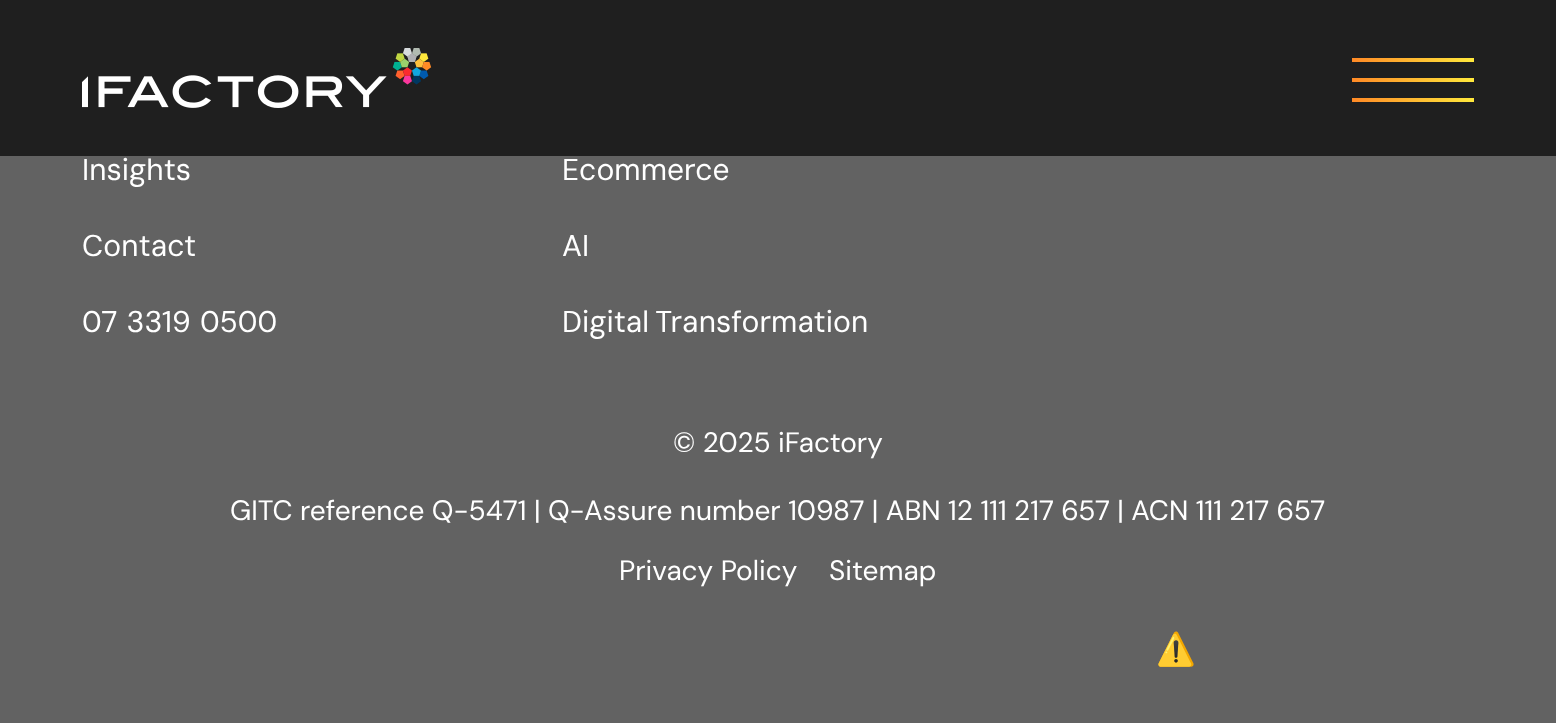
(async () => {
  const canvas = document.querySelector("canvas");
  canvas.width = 1556;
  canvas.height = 723;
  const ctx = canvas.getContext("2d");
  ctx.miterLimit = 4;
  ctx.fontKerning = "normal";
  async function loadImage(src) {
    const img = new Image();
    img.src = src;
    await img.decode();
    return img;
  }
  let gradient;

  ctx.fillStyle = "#626262";
  ctx.fillRect(0, 0, 1556, 723);
  ctx.fillStyle = "#1f1f1f";
  ctx.fillRect(0, 0, 1556, 156);
  ctx.drawImage(await loadImage("img/1.png"), 82, 48, 350, 60);
  gradient = ctx.createLinearGradient(1352, 62, 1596, 62);
  gradient.addColorStop(0, "#ff8a26");
  gradient.addColorStop(0.5, "#ffe83c");
  gradient.addColorStop(1, "#c0d642");
  ctx.fillStyle = gradient;
  ctx.fillRect(1352, 58, 122, 4);
  gradient = ctx.createLinearGradient(1352, 82, 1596, 82);
  gradient.addColorStop(0, "#ff8a26");
  gradient.addColorStop(0.5, "#ffe83c");
  gradient.addColorStop(1, "#c0d642");
  ctx.fillStyle = gradient;
  ctx.fillRect(1352, 78, 122, 4);
  gradient = ctx.createLinearGradient(1352, 102, 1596, 102);
  gradient.addColorStop(0, "#ff8a26");
  gradient.addColorStop(0.5, "#ffe83c");
  gradient.addColorStop(1, "#c0d642");
  ctx.fillStyle = gradient;
  ctx.fillRect(1352, 98, 122, 4);
  ctx.font = "30px DM Sans";
  ctx.fillStyle = "#ffffff";
  ctx.fillText("Insights", 82, 180);
  ctx.fillText("Contact", 82, 256);
  ctx.wordSpacing = "1px";
  ctx.fillText("07 3319 0500", 82, 332);
  ctx.wordSpacing = "0px";
  ctx.fillText("Ecommerce", 562, 180);
  ctx.fillText("AI", 562, 256);
  ctx.wordSpacing = "-2px";
  ctx.fillText("Digital Transformation", 562, 332);
  ctx.wordSpacing = "0px";
  ctx.font = "28px 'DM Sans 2'";
  for (const [text, x, y] of [
    ["© 2025 iFactory", 673, 452],
    ["GITC reference Q-5471 | Q-Assure number 10987 | ABN 12 111 217 657 | ACN 111 217 657", 230, 520],
    ["Privacy Policy", 619, 580],
    ["Sitemap", 829, 580],
  ]) {
    ctx.fillText(text, x, y);
  }
  ctx.font = "32px Noto Color Emoji";
  ctx.fillStyle = "#000000";
  ctx.fillText("⚠️", 1156, 660);
})();
